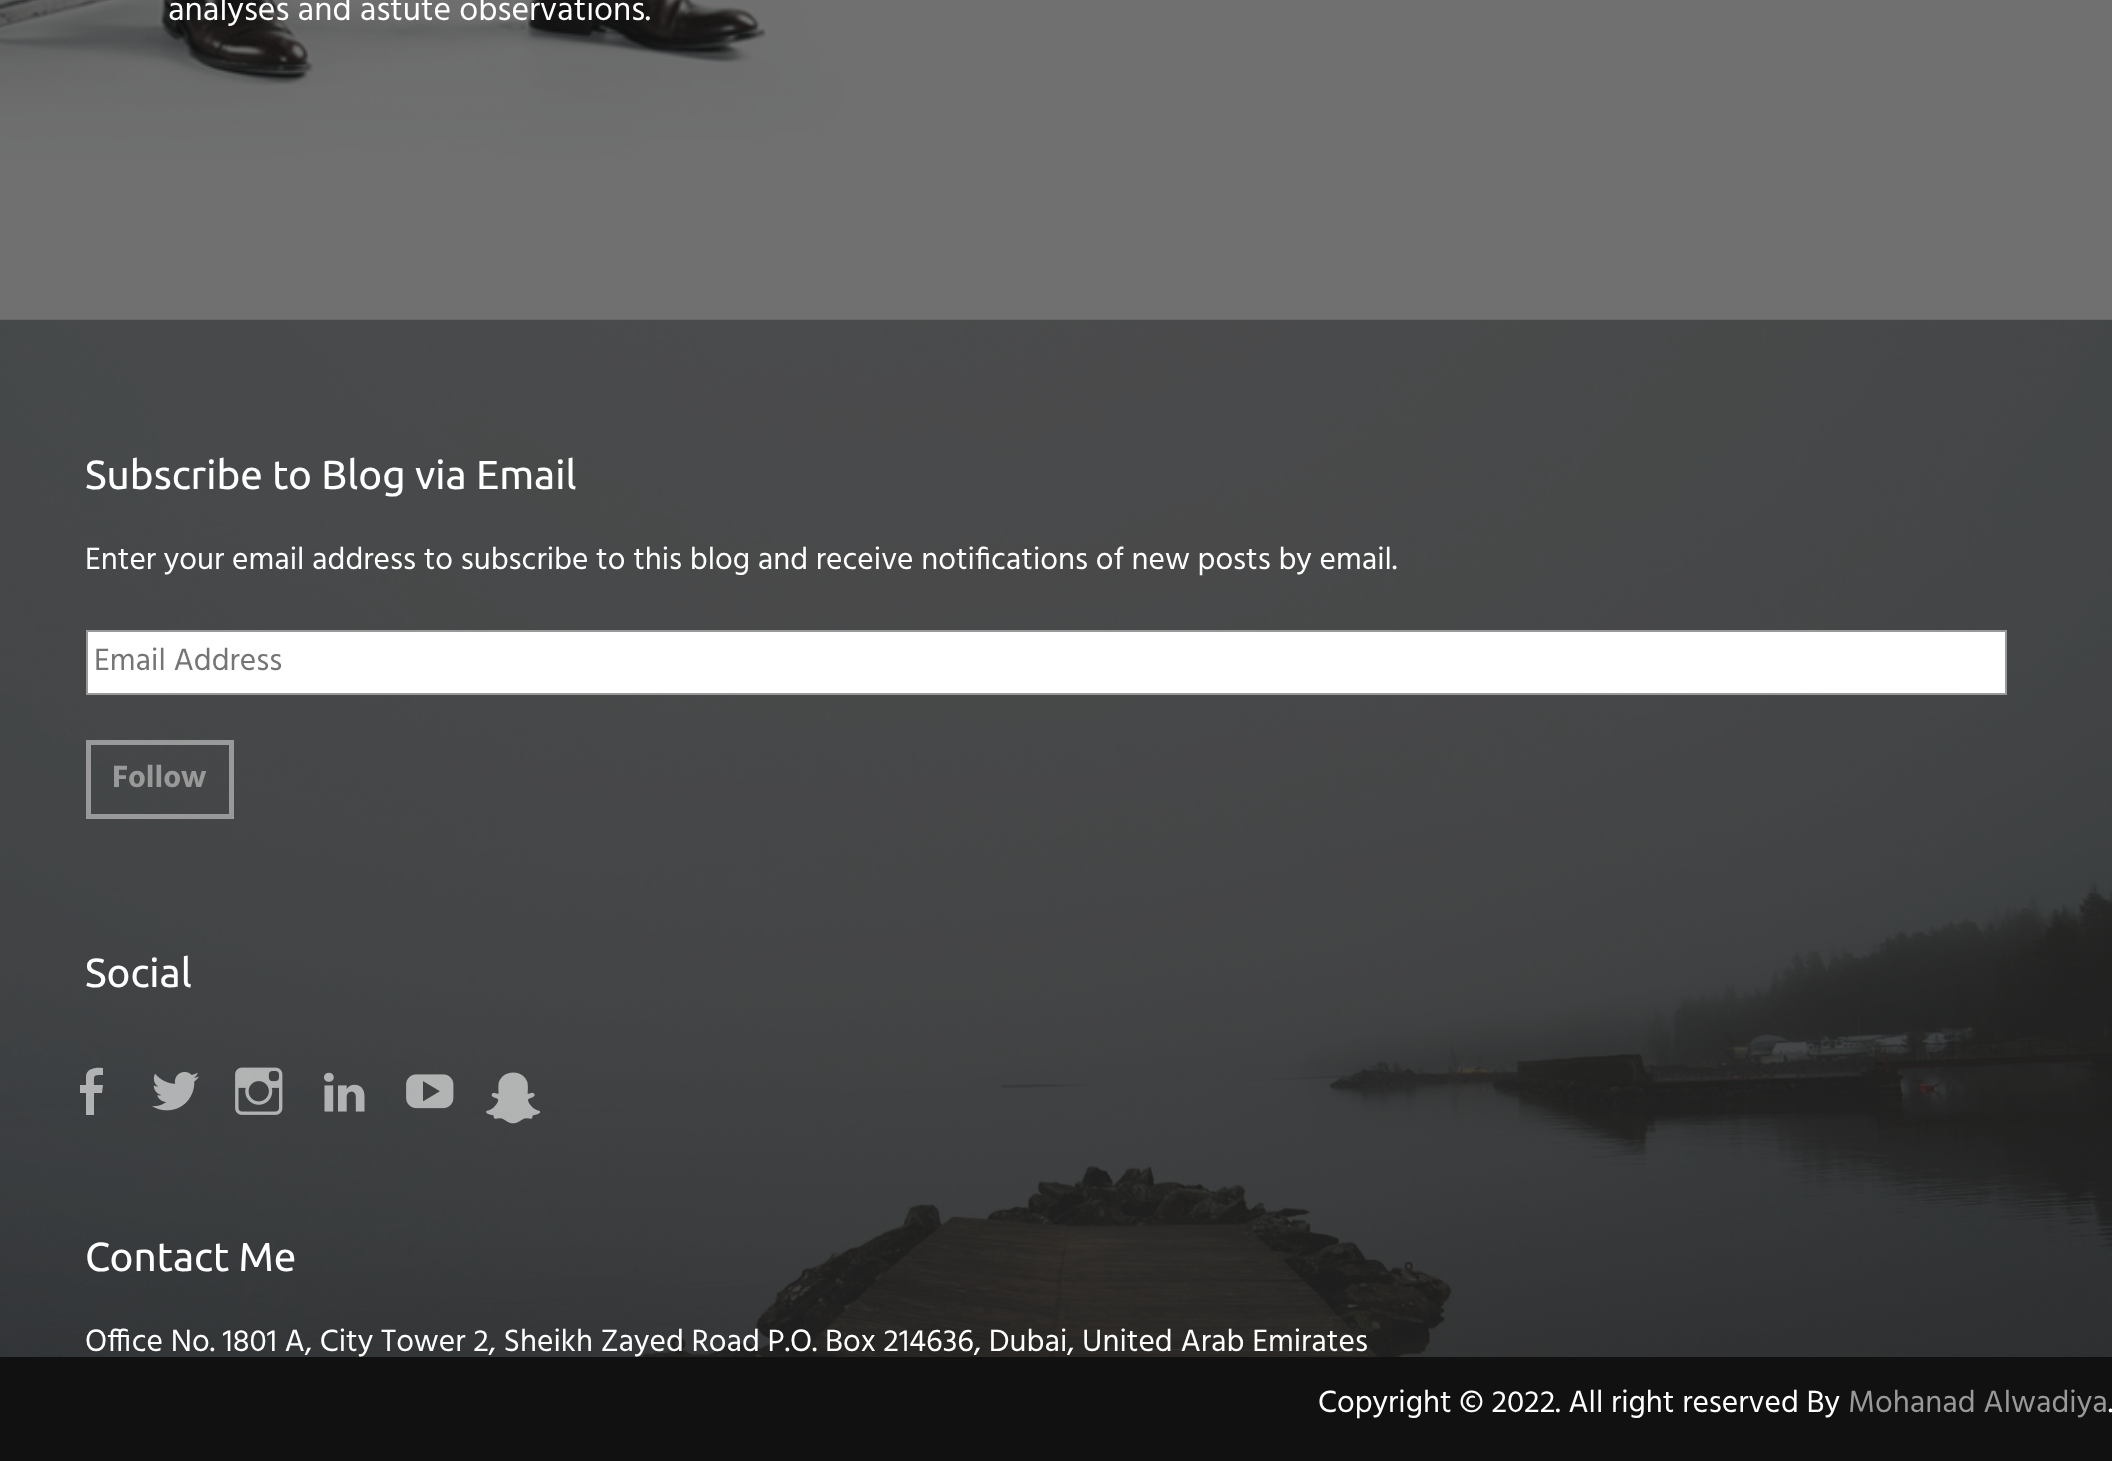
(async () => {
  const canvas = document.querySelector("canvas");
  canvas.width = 2112;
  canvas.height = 1461;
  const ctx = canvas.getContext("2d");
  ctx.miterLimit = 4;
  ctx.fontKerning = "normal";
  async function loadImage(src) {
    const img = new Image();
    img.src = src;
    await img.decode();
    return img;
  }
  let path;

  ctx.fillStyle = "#ffffff";
  ctx.fillRect(0, 0, 2112, 1461);
  ctx.drawImage(await loadImage("img/1.png"), 0, 0, 2112, 320);
  ctx.drawImage(await loadImage("img/2.png"), 0, 319, 2112, 1038);
  ctx.fillStyle = "rgba(17, 17, 17, 0.6)";
  ctx.fillRect(0, 0, 2112, 320);
  ctx.fillStyle = "#ffffff";
  ctx.beginPath();
  ctx.rect(87, 631, 1919, 63);
  ctx.fill();
  ctx.strokeStyle = "#999999";
  ctx.lineWidth = 2;
  ctx.stroke();
  ctx.lineWidth = 5;
  ctx.strokeRect(88.5, 742.5, 143, 74);
  ctx.fillStyle = "rgba(255, 255, 255, 0.6)";
  path = new Path2D("M94 1085H103L102 1093H94V1115H86V1093H80V1085H86V1076C87 1068 96 1067 103 1068V1075C93 1075 94 1075 94 1085Z");
  ctx.fill(path);
  ctx.drawImage(await loadImage("img/3.png"), 152, 1072, 47, 39);
  ctx.drawImage(await loadImage("img/4.png"), 235, 1067, 48, 48);
  ctx.drawImage(await loadImage("img/5.png"), 324, 1072, 41, 40);
  ctx.drawImage(await loadImage("img/6.png"), 406, 1074, 48, 35);
  ctx.drawImage(await loadImage("img/7.png"), 486, 1072, 54, 52);
  ctx.fillStyle = "#111111";
  ctx.fillRect(0, 1357, 2112, 104);
  ctx.font = "33.75px Hind";
  ctx.fillStyle = "#ffffff";
  ctx.fillText("analyses and astute observations.", 168, 20);
  ctx.font = "40.5px Ubuntu";
  ctx.fillText("Subscribe to Blog via Email", 85, 489);
  ctx.font = "31.5px Hind";
  ctx.fillText("Enter your email address to subscribe to this blog and receive notifications of new posts by email.", 85, 569);
  ctx.fillStyle = "#757575";
  ctx.fillText("Email Address", 94, 670);
  ctx.font = "bold 31.5px Hind";
  ctx.fillStyle = "#999999";
  ctx.fillText("Follow", 112, 787);
  ctx.font = "40.5px Ubuntu";
  ctx.fillStyle = "#ffffff";
  ctx.fillText("Social", 85, 987);
  ctx.fillText("Contact Me", 85, 1271);
  ctx.font = "31.5px Hind";
  ctx.fillText("Office No. 1801 A, City Tower 2, Sheikh Zayed Road P.O. Box 214636, Dubai, United Arab Emirates", 85, 1351);
  ctx.fillText("Copyright © 2022. All right reserved By", 1318, 1412);
  ctx.fillStyle = "#999999";
  ctx.fillText("Mohanad Alwadiya", 1848, 1412);
  ctx.fillStyle = "#ffffff";
  ctx.fillText(".", 2108, 1412);
})();
